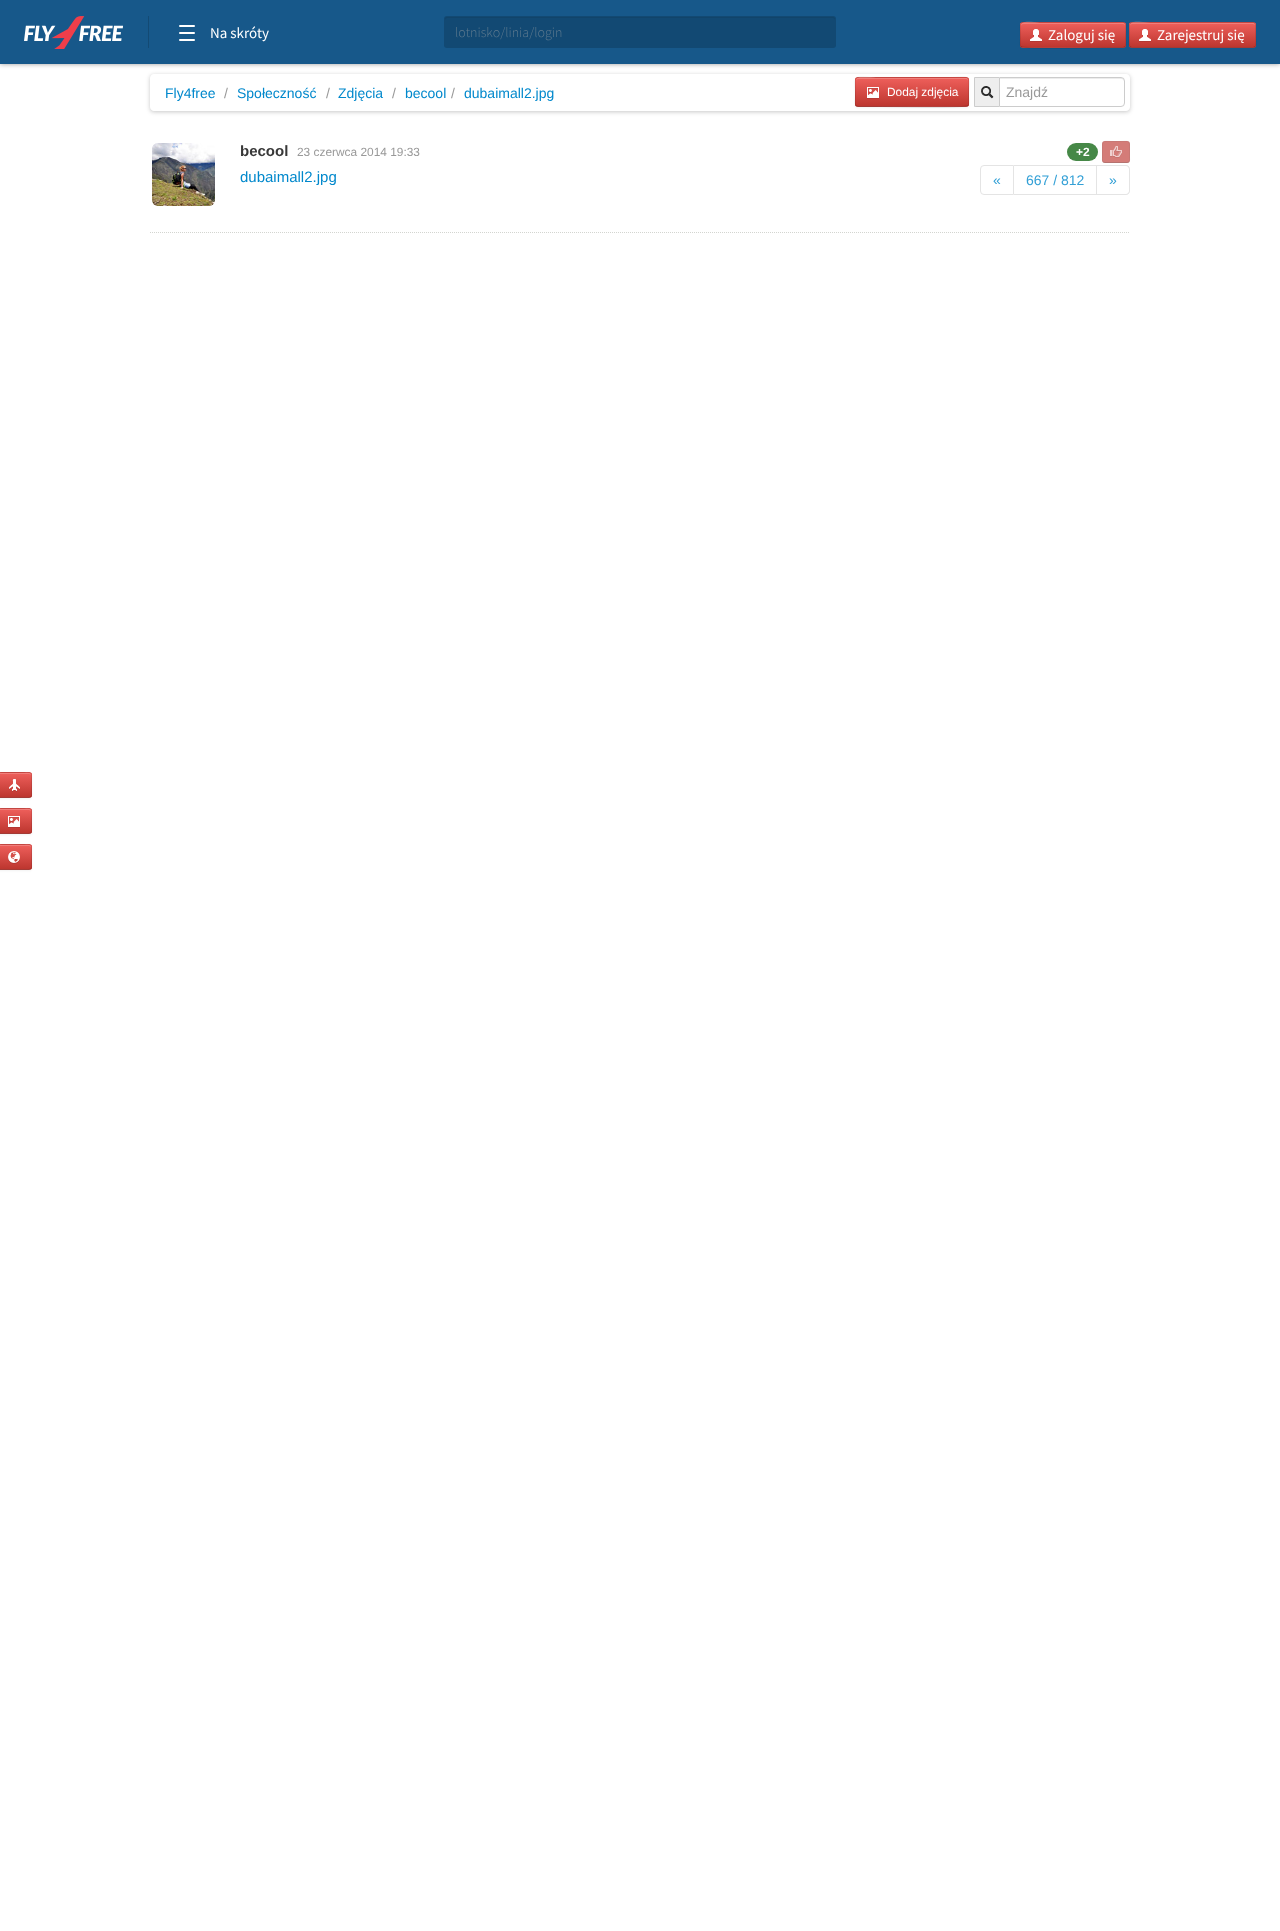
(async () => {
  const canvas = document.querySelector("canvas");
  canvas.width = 1280;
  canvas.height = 1931;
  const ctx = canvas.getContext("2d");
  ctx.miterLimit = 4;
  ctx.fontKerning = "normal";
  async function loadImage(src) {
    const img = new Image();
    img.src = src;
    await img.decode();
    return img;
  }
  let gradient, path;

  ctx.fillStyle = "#ffffff";
  ctx.fillRect(0, 0, 1280, 1931);
  ctx.fillStyle = "rgba(0, 0, 0, 0.4)";
  ctx.filter = "blur(2.5px)";
  ctx.beginPath();
  ctx.rect(0, 0, 1280, 64);
  ctx.fill();
  ctx.filter = "none";
  ctx.fillStyle = "#17588a";
  ctx.fillRect(0, 0, 1280, 64);
  ctx.drawImage(await loadImage("img/1.png"), 24, 16, 99, 33);
  ctx.fillStyle = "#134a74";
  ctx.fillRect(148, 16, 1, 32);
  ctx.fillStyle = "#ffffff";
  ctx.beginPath();
  ctx.roundRect(179, 39, 16, 2, 1);
  ctx.fill();
  ctx.beginPath();
  ctx.roundRect(179, 25, 16, 2, 1);
  ctx.fill();
  ctx.beginPath();
  ctx.roundRect(179, 32, 16, 2, 1);
  ctx.fill();
  ctx.fillStyle = "#124973";
  ctx.beginPath();
  ctx.roundRect(444, 16, 392, 32, 3);
  ctx.fill();
  ctx.fillStyle = "#11446a";
  path = new Path2D("M447 18H833C834 18 835 19 835 20V18L833 17H446C445 18 445 19 445 20C445 19 446 18 447 18Z");
  ctx.fill(path);
  ctx.fillStyle = "#da4f49";
  ctx.beginPath();
  ctx.roundRect(1020, 22, 106, 26, 3);
  ctx.fill();
  ctx.save();
  ctx.beginPath();
  ctx.roundRect(1020, 22, 106, 26, 3);
  ctx.clip();
  gradient = ctx.createLinearGradient(1073, 23, 1073, 47);
  gradient.addColorStop(0, "#ee5f5b");
  gradient.addColorStop(1, "#bd362f");
  ctx.fillStyle = gradient;
  ctx.fillRect(1020, 23, 106, 24);
  ctx.restore();
  ctx.fillStyle = "rgba(255, 255, 255, 0.2)";
  path = new Path2D("M1023 24H1123C1124 24 1125 25 1125 26C1125 25 1125 23 1123 23H1040C1039 23 1021 18 1021 26C1021 25 1022 24 1023 24Z");
  ctx.fill(path);
  path = new Path2D("M1125 47L1123 47.5H1106.5C1097.5 47.5 1023.5 48.5 1021.5 47H1021");
  ctx.strokeStyle = "rgba(0, 0, 0, 0.25)";
  ctx.stroke(path);
  path = new Path2D("M1021 47C1019.5 45 1020.5 40.5 1020.5 38.5C1020.5 18 1017 22.5 1039.5 22.5H1106.5C1129 22.5 1125.5 18 1125.5 38.5C1125.5 40.5 1126.5 45 1125 47");
  ctx.strokeStyle = "rgba(0, 0, 0, 0.1)";
  ctx.stroke(path);
  ctx.drawImage(await loadImage("img/2.png"), 1030, 29, 12, 13);
  ctx.fillStyle = "#da4f49";
  ctx.beginPath();
  ctx.roundRect(1129, 22, 127, 26, 3);
  ctx.fill();
  ctx.save();
  ctx.beginPath();
  ctx.roundRect(1129, 22, 127, 26, 3);
  ctx.clip();
  gradient = ctx.createLinearGradient(1193, 23, 1193, 47);
  gradient.addColorStop(0, "#ee5f5b");
  gradient.addColorStop(1, "#bd362f");
  ctx.fillStyle = gradient;
  ctx.fillRect(1129, 23, 127, 24);
  ctx.restore();
  ctx.fillStyle = "rgba(255, 255, 255, 0.2)";
  path = new Path2D("M1132 24H1253L1255 25V26C1255 25 1255 24 1254 23H1152C1146 23 1130 18 1130 26C1130 25 1131 24 1132 24Z");
  ctx.fill(path);
  path = new Path2D("M1255 47L1253 47.5H1132L1130 47");
  ctx.strokeStyle = "rgba(0, 0, 0, 0.25)";
  ctx.stroke(path);
  path = new Path2D("M1130 47C1128.5 45 1129.5 37.5 1129.5 35V28.5C1129.5 26.5 1129 22.5 1132 22.5H1253C1256 22.5 1255.5 26.5 1255.5 28.5V35C1255.5 37.5 1256.5 45 1255 47");
  ctx.strokeStyle = "rgba(0, 0, 0, 0.1)";
  ctx.stroke(path);
  ctx.drawImage(await loadImage("img/2.png"), 1139, 29, 12, 13);
  ctx.save();
  path = new Path2D("M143 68H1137V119H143ZM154 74H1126C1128 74 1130 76 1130 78V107C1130 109 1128 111 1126 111H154C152 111 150 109 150 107V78C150 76 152 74 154 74Z");
  ctx.clip(path, "evenodd");
  ctx.fillStyle = "rgba(0, 0, 0, 0.22)";
  ctx.filter = "blur(2px)";
  ctx.beginPath();
  ctx.roundRect(150, 75, 980, 37, 4);
  ctx.fill();
  ctx.filter = "none";
  ctx.restore();
  ctx.fillStyle = "rgba(0, 0, 0, 0.05)";
  ctx.filter = "blur(1px)";
  ctx.beginPath();
  ctx.roundRect(855, 78, 114, 30, 3);
  ctx.fill();
  ctx.filter = "none";
  ctx.fillStyle = "#da4f49";
  ctx.beginPath();
  ctx.roundRect(855, 77, 114, 30, 3);
  ctx.fill();
  ctx.save();
  ctx.beginPath();
  ctx.roundRect(855, 77, 114, 30, 3);
  ctx.clip();
  gradient = ctx.createLinearGradient(912, 78, 912, 106);
  gradient.addColorStop(0, "#ee5f5b");
  gradient.addColorStop(1, "#bd362f");
  ctx.fillStyle = gradient;
  ctx.fillRect(855, 78, 114, 28);
  ctx.restore();
  ctx.fillStyle = "rgba(255, 255, 255, 0.2)";
  path = new Path2D("M858 79H966C967 79 968 80 968 81C968 80 968 78 966 78H876C876 78 856 73 856 81C856 80 857 79 858 79Z");
  ctx.fill(path);
  path = new Path2D("M968 106H967.5C965.5 107.5 885 106.5 876 106.5H858L856 106");
  ctx.strokeStyle = "rgba(0, 0, 0, 0.25)";
  ctx.stroke(path);
  path = new Path2D("M856 106C854.5 104 855.5 98 855.5 96C855.5 73 851 77.5 876 77.5H948C973 77.5 968.5 73 968.5 96C968.5 98 969.5 104 968 106");
  ctx.strokeStyle = "rgba(0, 0, 0, 0.1)";
  ctx.stroke(path);
  ctx.drawImage(await loadImage("img/3.png"), 867, 87, 12, 12);
  ctx.fillStyle = "#eeeeee";
  ctx.beginPath();
  ctx.rect(974.5, 77.5, 25, 29);
  ctx.fill();
  ctx.strokeStyle = "#cccccc";
  ctx.stroke();
  ctx.drawImage(await loadImage("img/4.png"), 981, 86, 13, 13);
  ctx.fillStyle = "#ffffff";
  ctx.beginPath();
  ctx.roundRect(999, 77, 126, 30, [0, 4, 4, 0]);
  ctx.fill();
  ctx.fillStyle = "#ececec";
  path = new Path2D("M1000 79H1121C1123 79 1124 80 1124 82V81C1124 79 1123 78 1121 78H1000Z");
  ctx.fill(path);
  ctx.beginPath();
  ctx.roundRect(999.5, 77.5, 125, 29, [0, 3.5, 3.5, 0]);
  ctx.stroke();
  path = new Path2D("M150 232.5H1130");
  ctx.strokeStyle = "#d3d5d0";
  ctx.setLineDash([1, 1]);
  ctx.stroke(path);
  ctx.drawImage(await loadImage("img/5.png"), 152, 143, 63, 63);
  ctx.fillStyle = "#468847";
  ctx.beginPath();
  ctx.roundRect(1067, 143, 31, 18, 9);
  ctx.fill();
  ctx.fillStyle = "#d47c78";
  ctx.beginPath();
  ctx.roundRect(1102, 141, 28, 22, 3);
  ctx.fill();
  path = new Path2D("M1129 162C1128.5 162 1127.5 162.5 1127 162.5H1105C1104.5 162.5 1103.5 162 1103 162");
  ctx.strokeStyle = "rgba(89, 89, 89, 0.25)";
  ctx.setLineDash([]);
  ctx.stroke(path);
  path = new Path2D("M1103 162C1102 160.5 1102.5 158.5 1102.5 157.5V152C1102.5 138.5 1101.5 141.5 1116 141.5C1130.5 141.5 1129.5 138.5 1129.5 152V157.5C1129.5 158.5 1130 160.5 1129 162");
  ctx.strokeStyle = "rgba(89, 89, 89, 0.1)";
  ctx.stroke(path);
  ctx.drawImage(await loadImage("img/6.png"), 1110, 146, 12, 12);
  ctx.beginPath();
  ctx.roundRect(980.5, 165.5, 33, 29, [3.5, 0, 0, 3.5]);
  ctx.strokeStyle = "#e4e4e4";
  ctx.stroke();
  for (const [x, y, w, h, color] of [
    [1014, 165, 83, 1, "#e4e4e4"],
    [1096, 165, 1, 30, "#e4e4e4"],
    [1014, 194, 83, 1, "#e4e4e4"],
  ]) {
    ctx.fillStyle = color;
    ctx.fillRect(x, y, w, h);
  }
  path = new Path2D("M1097 165H1126C1128 165 1130 167 1130 169V191C1130 193 1128 195 1126 195H1097ZM1097 166H1126C1127.5 166 1129 167.5 1129 169V191C1129 192.5 1127.5 194 1126 194H1097Z");
  ctx.fill(path, "evenodd");
  ctx.fillStyle = "rgba(0, 0, 0, 0.05)";
  ctx.filter = "blur(1px)";
  ctx.beginPath();
  ctx.roundRect(-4, 773, 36, 26, 3);
  ctx.fill();
  ctx.filter = "none";
  ctx.fillStyle = "#da4f49";
  ctx.beginPath();
  ctx.roundRect(-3, 772, 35, 26, 3);
  ctx.fill();
  ctx.save();
  ctx.beginPath();
  ctx.roundRect(-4, 772, 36, 26, 3);
  ctx.clip();
  gradient = ctx.createLinearGradient(14, 773, 14, 797);
  gradient.addColorStop(0, "#ee5f5b");
  gradient.addColorStop(1, "#bd362f");
  ctx.fillStyle = gradient;
  ctx.fillRect(0, 773, 32, 24);
  ctx.restore();
  ctx.fillStyle = "#f17e7b";
  path = new Path2D("M-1 774H29C30 774 31 775 31 776C31 771.5 28 773 24 773H4C0 773-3 771.5-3 776C-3 775-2 774-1 774Z");
  ctx.fill(path);
  path = new Path2D("M31 797C30.5 797 29.5 797.5 29 797.5H-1C-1.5 797.5-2.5 797-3 797");
  ctx.strokeStyle = "rgba(0, 0, 0, 0.25)";
  ctx.stroke(path);
  path = new Path2D("M-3 797C-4 795.5-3.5 793-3.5 791.5V778.5C-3.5 771.5-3 772.5 4 772.5H24C31 772.5 31.5 771.5 31.5 778.5V791.5C31.5 793 32 795.5 31 797");
  ctx.strokeStyle = "rgba(0, 0, 0, 0.1)";
  ctx.stroke(path);
  ctx.drawImage(await loadImage("img/7.png"), 9, 779, 11, 13);
  ctx.fillStyle = "rgba(0, 0, 0, 0.05)";
  ctx.filter = "blur(1px)";
  ctx.beginPath();
  ctx.roundRect(-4, 809, 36, 26, 3);
  ctx.fill();
  ctx.filter = "none";
  ctx.fillStyle = "#da4f49";
  ctx.beginPath();
  ctx.roundRect(-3, 808, 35, 26, 3);
  ctx.fill();
  ctx.save();
  ctx.beginPath();
  ctx.roundRect(-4, 808, 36, 26, 3);
  ctx.clip();
  gradient = ctx.createLinearGradient(14, 809, 14, 833);
  gradient.addColorStop(0, "#ee5f5b");
  gradient.addColorStop(1, "#bd362f");
  ctx.fillStyle = gradient;
  ctx.fillRect(0, 809, 32, 24);
  ctx.restore();
  ctx.fillStyle = "#f17e7b";
  path = new Path2D("M-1 810H29C30 810 31 811 31 812C31 807.5 28 809 24 809H4C0 809-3 807.5-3 812C-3 811-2 810-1 810Z");
  ctx.fill(path);
  path = new Path2D("M31 833C30.5 833 29.5 833.5 29 833.5H-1C-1.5 833.5-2.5 833-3 833");
  ctx.strokeStyle = "rgba(0, 0, 0, 0.25)";
  ctx.stroke(path);
  path = new Path2D("M-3 833C-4 831.5-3.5 829-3.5 827.5V814.5C-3.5 807.5-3 808.5 4 808.5H24C31 808.5 31.5 807.5 31.5 814.5V827.5C31.5 829 32 831.5 31 833");
  ctx.strokeStyle = "rgba(0, 0, 0, 0.1)";
  ctx.stroke(path);
  ctx.drawImage(await loadImage("img/8.png"), 8, 816, 12, 12);
  ctx.fillStyle = "rgba(0, 0, 0, 0.05)";
  ctx.filter = "blur(1px)";
  ctx.beginPath();
  ctx.roundRect(-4, 845, 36, 26, 3);
  ctx.fill();
  ctx.filter = "none";
  ctx.fillStyle = "#da4f49";
  ctx.beginPath();
  ctx.roundRect(-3, 844, 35, 26, 3);
  ctx.fill();
  ctx.save();
  ctx.beginPath();
  ctx.roundRect(-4, 844, 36, 26, 3);
  ctx.clip();
  gradient = ctx.createLinearGradient(14, 845, 14, 869);
  gradient.addColorStop(0, "#ee5f5b");
  gradient.addColorStop(1, "#bd362f");
  ctx.fillStyle = gradient;
  ctx.fillRect(0, 845, 32, 24);
  ctx.restore();
  ctx.fillStyle = "#f17e7b";
  path = new Path2D("M-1 846H29C30 846 31 847 31 848C31 843.5 28 845 24 845H4C0 845-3 843.5-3 848C-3 847-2 846-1 846Z");
  ctx.fill(path);
  path = new Path2D("M31 869C30.5 869 29.5 869.5 29 869.5H-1C-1.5 869.5-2.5 869-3 869");
  ctx.strokeStyle = "rgba(0, 0, 0, 0.25)";
  ctx.stroke(path);
  path = new Path2D("M-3 869C-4 867.5-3.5 865-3.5 863.5V850.5C-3.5 843.5-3 844.5 4 844.5H24C31 844.5 31.5 843.5 31.5 850.5V863.5C31.5 865 32 867.5 31 869");
  ctx.strokeStyle = "rgba(0, 0, 0, 0.1)";
  ctx.stroke(path);
  ctx.drawImage(await loadImage("img/9.png"), 8, 851, 12, 13);
  ctx.font = "15px Source Sans Pro";
  ctx.fillStyle = "#ffffff";
  ctx.fillText("Na skróty", 210, 38);
  ctx.font = "300 14px Source Sans Pro";
  ctx.fillStyle = "#5e7a8f";
  ctx.fillText("lotnisko/linia/login", 455, 37);
  ctx.font = "15px Source Sans Pro";
  ctx.fillStyle = "#ffffff";
  ctx.fillText("Zaloguj się", 1048, 40);
  ctx.fillText("Zarejestruj się", 1157, 40);
  ctx.font = "14px Liberation Sans";
  ctx.fillStyle = "#0088cc";
  ctx.fillText("Fly4free", 165, 98);
  ctx.fillStyle = "#999999";
  ctx.fillText("/", 224, 98);
  ctx.fillStyle = "#0088cc";
  ctx.fillText("Społeczność", 237, 98);
  ctx.fillStyle = "#999999";
  ctx.fillText("/", 326, 98);
  ctx.fillStyle = "#0088cc";
  ctx.fillText("Zdjęcia", 338, 98);
  ctx.fillStyle = "#999999";
  ctx.fillText("/", 392, 98);
  ctx.fillStyle = "#0088cc";
  ctx.fillText("becool", 405, 98);
  ctx.fillStyle = "#999999";
  ctx.fillText("/", 451, 98);
  ctx.fillStyle = "#0088cc";
  ctx.fillText("dubaimall2.jpg", 464, 98);
  ctx.font = "11.9px Liberation Sans";
  ctx.fillStyle = "#ffffff";
  ctx.fillText("Dodaj zdjęcia", 887, 96);
  ctx.font = "14px Liberation Sans";
  ctx.fillStyle = "#999999";
  ctx.fillText("Znajdź", 1006, 97);
  ctx.font = "bold 15px Liberation Sans";
  ctx.fillStyle = "#383838";
  ctx.fillText("becool", 240, 156);
  ctx.font = "11.9px Liberation Sans";
  ctx.fillStyle = "#999999";
  ctx.fillText("23 czerwca 2014 19:33", 297, 156);
  ctx.font = "bold 12px Liberation Sans";
  ctx.fillStyle = "#ffffff";
  ctx.fillText("+2", 1076, 156);
  ctx.font = "15px Liberation Sans";
  ctx.fillStyle = "#0088cc";
  ctx.fillText("dubaimall2.jpg", 240, 182);
  ctx.font = "14px Liberation Sans";
  ctx.fillStyle = "#33a0d6";
  for (const [text, x, y] of [
    ["«", 993, 185],
    ["667 / 812", 1026, 185],
    ["»", 1109, 185],
  ]) {
    ctx.fillText(text, x, y);
  }
})();
